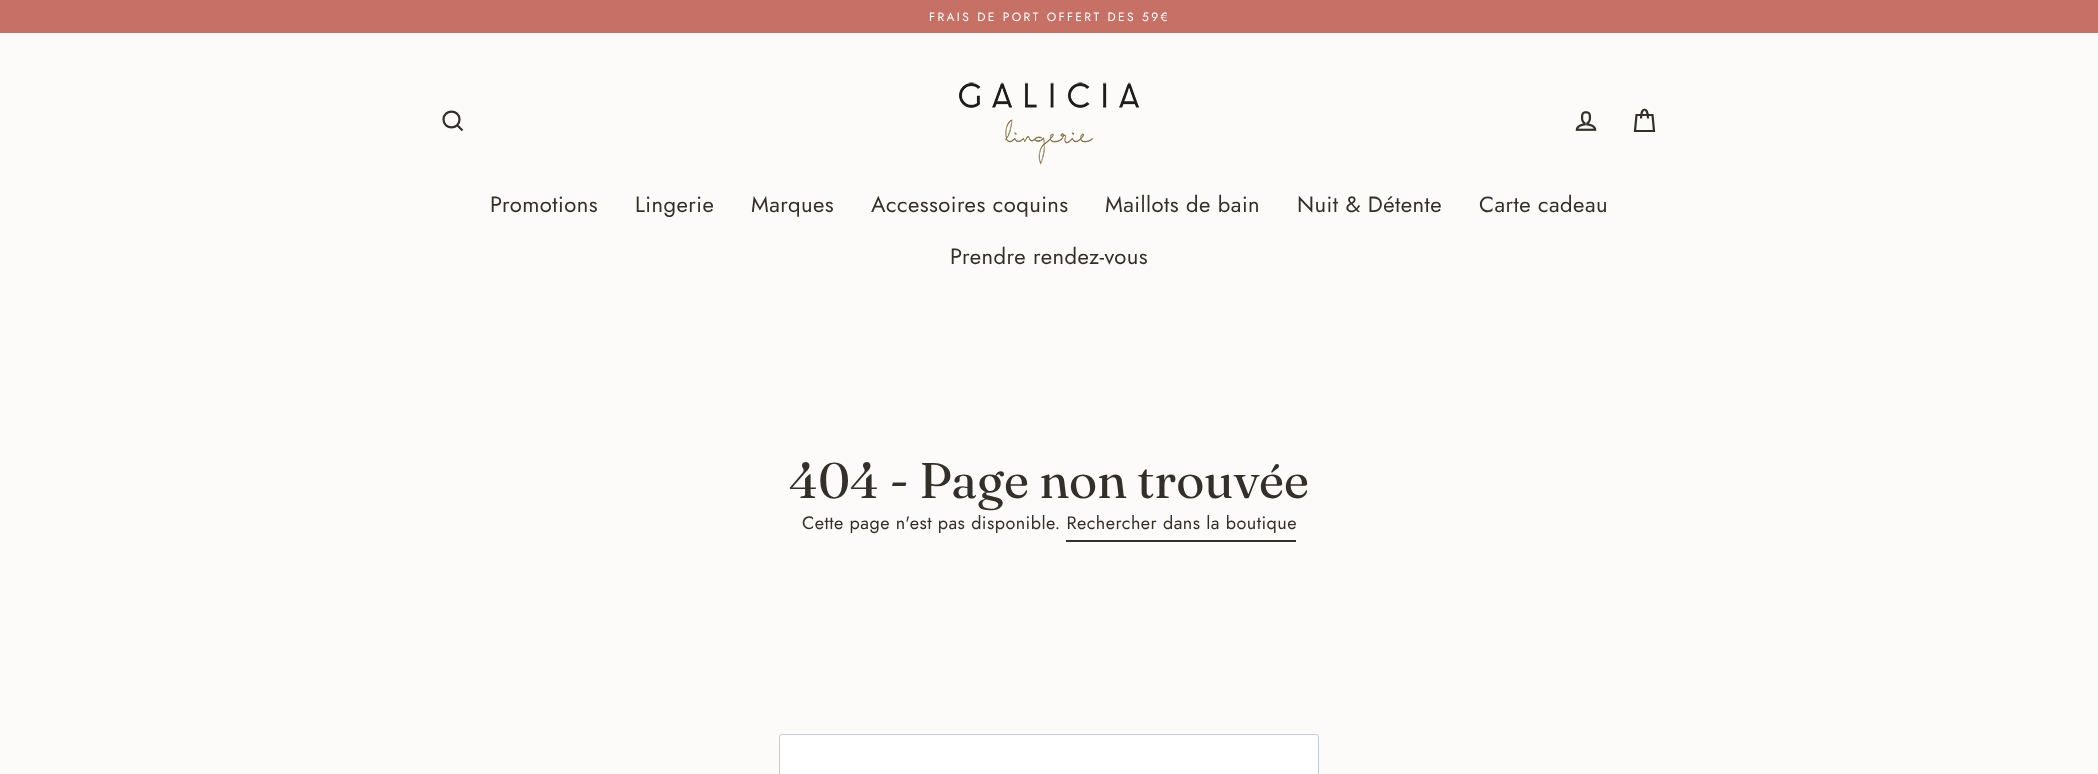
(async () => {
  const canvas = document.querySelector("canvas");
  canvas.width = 2098;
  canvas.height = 774;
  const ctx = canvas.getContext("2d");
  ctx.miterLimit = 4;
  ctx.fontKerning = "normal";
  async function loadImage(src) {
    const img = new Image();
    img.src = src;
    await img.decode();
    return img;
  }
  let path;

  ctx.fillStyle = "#fdfbfa";
  ctx.fillRect(0, 0, 2098, 774);
  ctx.fillStyle = "#c67066";
  ctx.fillRect(0, 0, 2098, 33);
  path = new Path2D("M459.5 119.5C459.5 130 443.5 130 443.5 119.5C443.5 109 459.5 109 459.5 119.5ZM462.5 130.5L457.5 125.5");
  ctx.strokeStyle = "#333029";
  ctx.lineWidth = 2.2;
  ctx.stroke(path);
  ctx.drawImage(await loadImage("img/1.png"), 959, 82, 180, 83);
  ctx.drawImage(await loadImage("img/2.png"), 1575, 111, 22, 20);
  path = new Path2D("M1641 118.5C1641 106.5 1648 106.5 1648 118.5M1636.5 115H1652.5L1654 131H1635Z");
  ctx.stroke(path);
  ctx.fillStyle = "#333029";
  ctx.fillRect(1066, 540, 230, 2);
  ctx.fillStyle = "#ffffff";
  ctx.beginPath();
  ctx.roundRect(779.5, 734.5, 539, 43, 2.5);
  ctx.fill();
  ctx.strokeStyle = "#c0ccd9";
  ctx.lineWidth = 1;
  ctx.stroke();
  ctx.letterSpacing = "2.4px";
  ctx.font = "12px Jost";
  ctx.fillText("FRAIS DE PORT OFFERT DES 59€", 929, 21);
  ctx.letterSpacing = "0.45px";
  ctx.font = "22px Jost";
  ctx.fillStyle = "#333029";
  for (const [text, x, y] of [
    ["Promotions", 490, 212],
    ["Lingerie", 635, 212],
    ["Marques", 751, 212],
    ["Accessoires coquins", 871, 212],
    ["Maillots de bain", 1105, 212],
    ["Nuit & Détente", 1297, 212],
    ["Carte cadeau", 1479, 212],
    ["Prendre rendez-vous", 950, 264],
  ]) {
    ctx.fillText(text, x, y);
  }
  ctx.letterSpacing = "0px";
  ctx.font = "50px Fraunces";
  ctx.fillText("404 - Page non trouvée", 789, 498);
  ctx.letterSpacing = "0.45px";
  ctx.font = "18px Jost";
  ctx.fillText("Cette page n'est pas disponible. Rechercher dans la boutique", 802, 529);
})();
